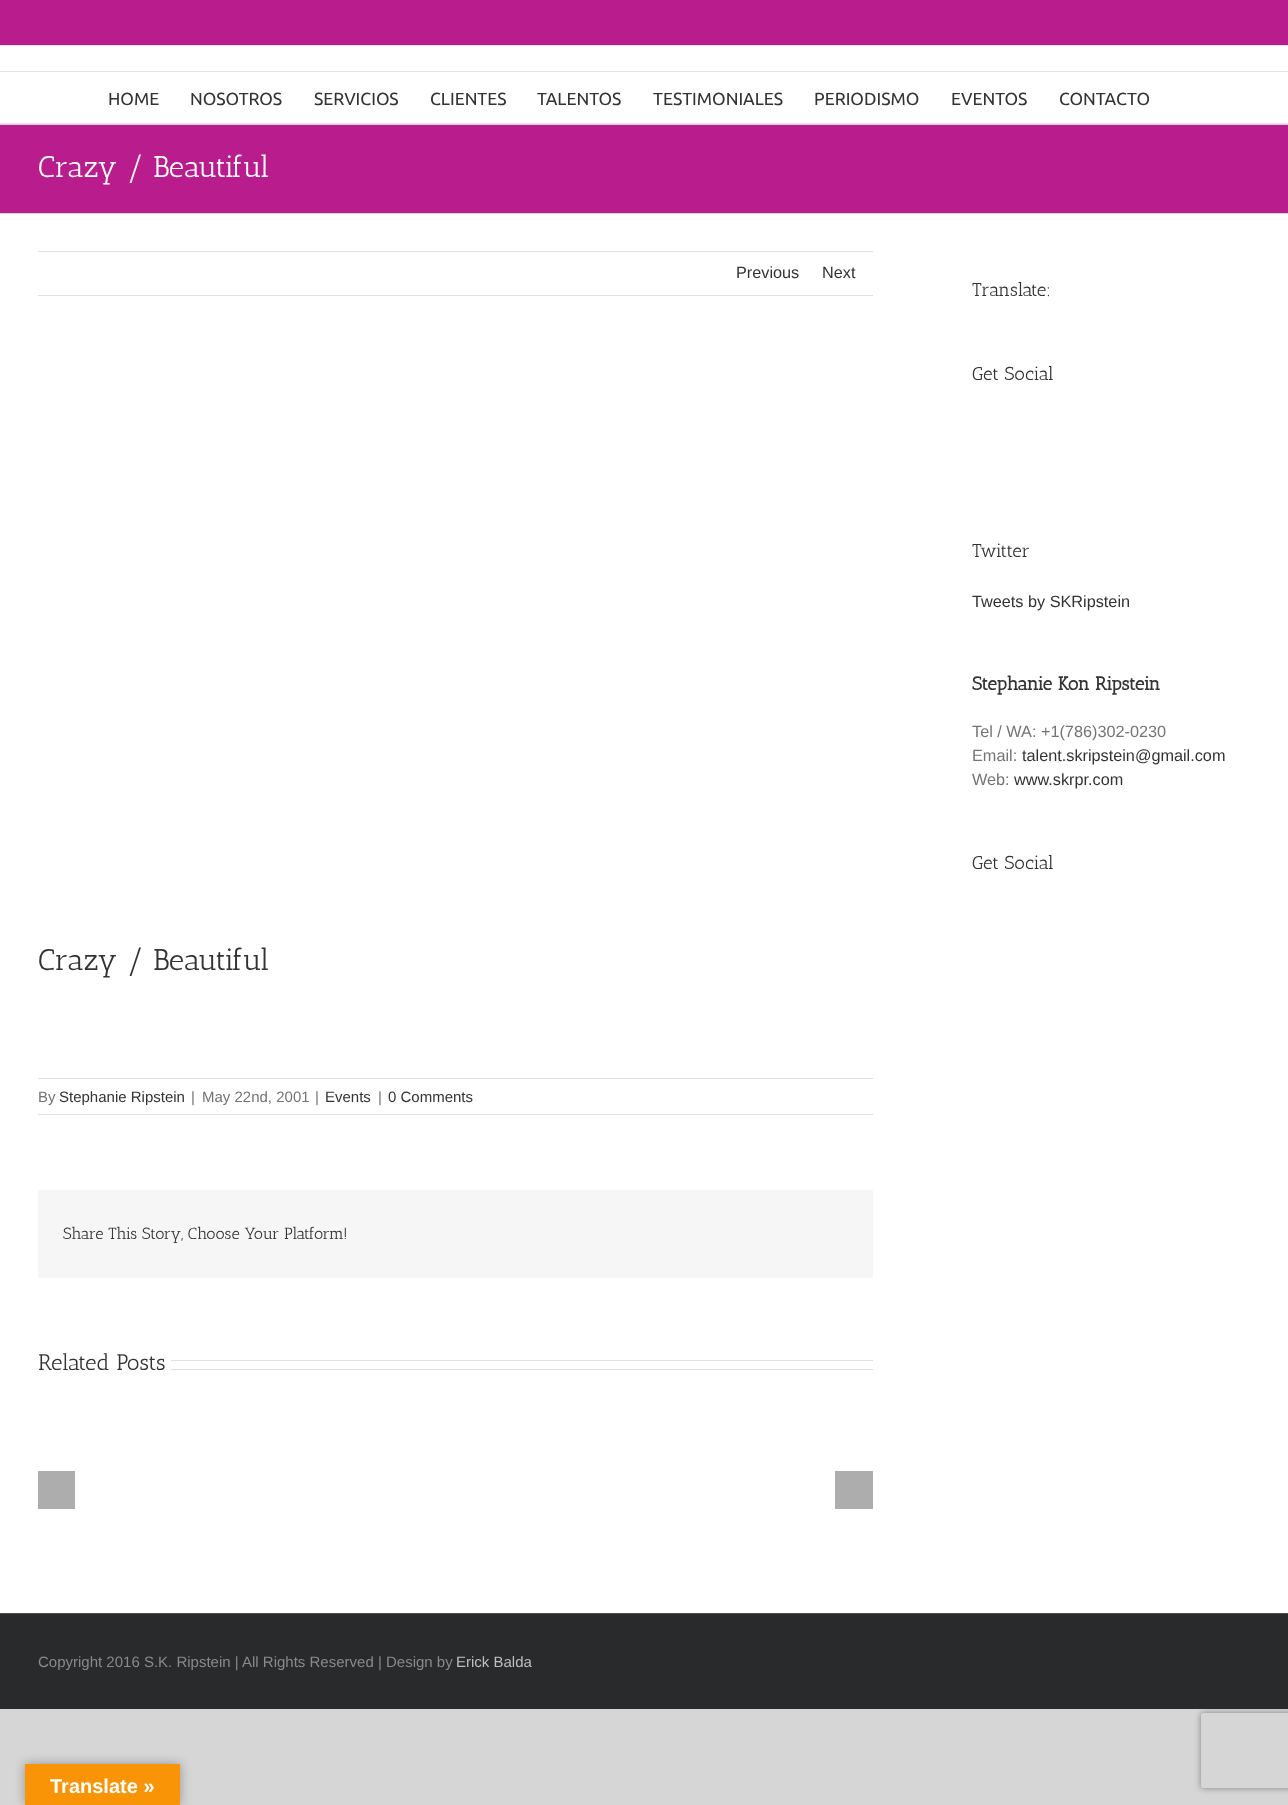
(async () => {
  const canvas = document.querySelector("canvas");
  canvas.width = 1288;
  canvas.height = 1805;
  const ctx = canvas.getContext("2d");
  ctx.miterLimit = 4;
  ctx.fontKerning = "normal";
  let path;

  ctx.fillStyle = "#d7d6d6";
  ctx.fillRect(0, 0, 1288, 1805);
  for (const [x, y, w, h, color] of [
    [0, 46, 1288, 1567, "#ffffff"],
    [0, 0, 1288, 45, "#b91c8d"],
    [0, 45, 1288, 1, "#e5e5e5"],
    [0, 71, 1288, 1, "#e5e5e5"],
    [0, 123, 1288, 1, "#e5e5e5"],
    [0, 125, 1288, 88, "#b91c8d"],
    [0, 124, 1288, 1, "#d2d3d4"],
    [0, 213, 1288, 1, "#d2d3d4"],
    [38, 251, 835, 1, "#e0dede"],
    [38, 295, 835, 1, "#e0dede"],
    [38, 1078, 835, 1, "#e0dede"],
    [38, 1114, 835, 1, "#e0dede"],
    [38, 1190, 835, 88, "#f6f6f6"],
    [171, 1360, 702, 1, "#e0dede"],
    [171, 1369, 702, 1, "#e0dede"],
    [38, 1471, 37, 38, "#adadad"],
    [835, 1471, 38, 38, "#adadad"],
  ]) {
    ctx.fillStyle = color;
    ctx.fillRect(x, y, w, h);
  }
  ctx.save();
  path = new Path2D("M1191 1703H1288V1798H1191ZM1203.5 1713H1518.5C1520 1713 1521 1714 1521 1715.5V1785.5C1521 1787 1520 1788 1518.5 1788H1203.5C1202 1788 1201 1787 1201 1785.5V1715.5C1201 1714 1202 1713 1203.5 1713Z");
  ctx.clip(path, "evenodd");
  ctx.fillStyle = "#808080";
  ctx.filter = "blur(3px)";
  ctx.beginPath();
  ctx.roundRect(1201, 1713, 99, 75, 2.5);
  ctx.fill();
  ctx.filter = "none";
  ctx.restore();
  ctx.fillStyle = "#282a2b";
  ctx.fillRect(0, 1614, 1288, 95);
  ctx.fillStyle = "#4b4c4d";
  ctx.fillRect(0, 1613, 1288, 1);
  ctx.fillStyle = "rgba(0, 0, 0, 0.3)";
  ctx.filter = "blur(5.5px)";
  ctx.beginPath();
  ctx.rect(25, 1764, 155, 41);
  ctx.fill();
  ctx.filter = "none";
  ctx.fillStyle = "#f89406";
  ctx.fillRect(25, 1764, 155, 41);
  ctx.font = "17.5px Ubuntu";
  ctx.fillStyle = "#333333";
  for (const [text, x, y] of [
    ["HOME", 108, 105],
    ["NOSOTROS", 190, 105],
    ["SERVICIOS", 314, 105],
    ["CLIENTES", 430, 105],
    ["TALENTOS", 537, 105],
    ["TESTIMONIALES", 653, 105],
    ["PERIODISMO", 814, 105],
    ["EVENTOS", 951, 105],
    ["CONTACTO", 1059, 105],
  ]) {
    ctx.fillText(text, x, y);
  }
  ctx.font = "30px Antic Slab";
  ctx.fillStyle = "#ffffff";
  ctx.fillText("Crazy / Beautiful", 38, 177);
  ctx.font = "16.25px Liberation Sans";
  ctx.fillStyle = "#333333";
  ctx.fillText("Previous", 736, 278);
  ctx.fillText("Next", 822, 278);
  ctx.font = "30px Antic Slab";
  ctx.fillText("Crazy / Beautiful", 38, 970);
  ctx.font = "15px Liberation Sans";
  ctx.fillStyle = "#747474";
  ctx.fillText("By", 38, 1102);
  ctx.fillStyle = "#333333";
  ctx.fillText("Stephanie Ripstein", 59, 1102);
  ctx.fillStyle = "#747474";
  for (const [text, x, y] of [
    ["|", 191, 1102],
    ["May 22nd, 2001", 202, 1102],
    ["|", 315, 1102],
  ]) {
    ctx.fillText(text, x, y);
  }
  ctx.fillStyle = "#333333";
  ctx.fillText("Events", 325, 1102);
  ctx.fillStyle = "#747474";
  ctx.fillText("|", 378, 1102);
  ctx.fillStyle = "#333333";
  ctx.fillText("0 Comments", 388, 1102);
  ctx.font = "16.25px Antic Slab";
  ctx.fillText("Share This Story, Choose Your Platform!", 63, 1239);
  ctx.font = "22.5px Antic Slab";
  ctx.fillText("Related Posts", 38, 1370);
  ctx.font = "18.75px Antic Slab";
  for (const [text, x, y] of [
    ["Translate:", 972, 296],
    ["Get Social", 972, 380],
    ["Twitter", 972, 557],
  ]) {
    ctx.fillText(text, x, y);
  }
  ctx.font = "16.25px Liberation Sans";
  ctx.fillText("Tweets by SKRipstein", 972, 607);
  ctx.font = "bold 18.75px Antic Slab";
  ctx.fillText("Stephanie Kon Ripstein", 972, 690);
  ctx.font = "16.25px Liberation Sans";
  ctx.fillStyle = "#747474";
  ctx.fillText("Tel / WA: +1(786)302-0230", 972, 737);
  ctx.fillText("Email:", 972, 761);
  ctx.fillStyle = "#333333";
  ctx.fillText("talent.skripstein@gmail.com", 1022, 761);
  ctx.fillStyle = "#747474";
  ctx.fillText("Web:", 972, 785);
  ctx.fillStyle = "#333333";
  ctx.fillText("www.skrpr.com", 1014, 785);
  ctx.font = "18.75px Antic Slab";
  ctx.fillText("Get Social", 972, 869);
  ctx.font = "15px Liberation Sans";
  ctx.fillStyle = "#8c8989";
  ctx.fillText("Copyright 2016 S.K. Ripstein | All Rights Reserved | Design by", 38, 1667);
  ctx.fillStyle = "#bfbfbf";
  ctx.fillText("Erick Balda", 456, 1667);
  ctx.font = "bold 20px Liberation Sans";
  ctx.fillStyle = "#ffffff";
  ctx.fillText("Translate »", 50, 1793);
})();
